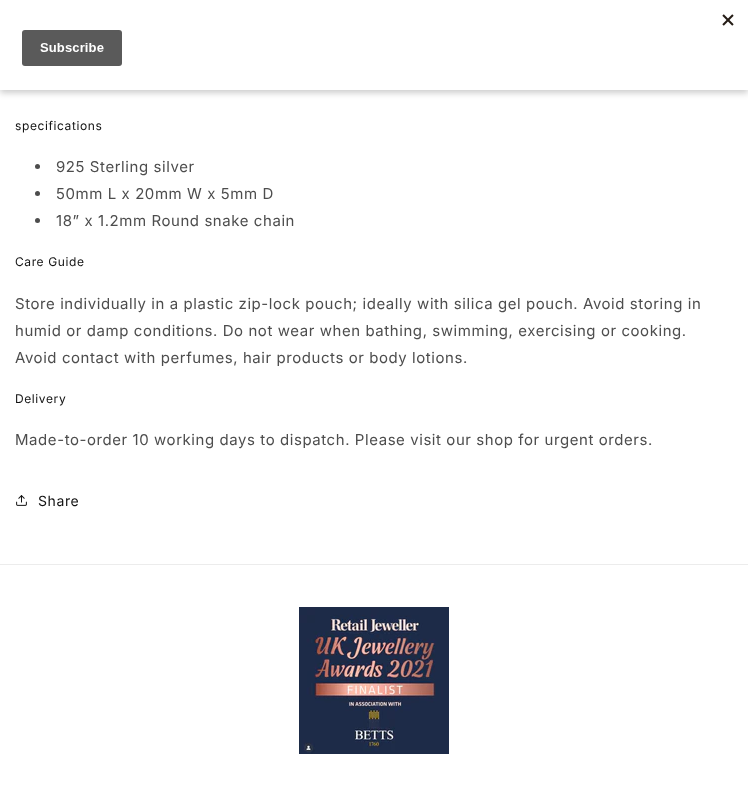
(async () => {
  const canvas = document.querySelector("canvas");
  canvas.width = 748;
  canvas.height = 791;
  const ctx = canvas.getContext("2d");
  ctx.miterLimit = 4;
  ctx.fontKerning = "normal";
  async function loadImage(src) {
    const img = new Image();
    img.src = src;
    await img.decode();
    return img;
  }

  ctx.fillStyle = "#ffffff";
  ctx.fillRect(0, 0, 748, 791);
  ctx.fillStyle = "rgba(0, 0, 0, 0.2)";
  ctx.filter = "blur(3px)";
  ctx.beginPath();
  ctx.rect(0, 3, 748, 90);
  ctx.fill();
  ctx.filter = "none";
  ctx.fillStyle = "#ffffff";
  ctx.fillRect(0, 0, 748, 90);
  ctx.drawImage(await loadImage("img/1.png"), 22, 14, 712, 52);
  ctx.fillStyle = "#4d4d4d";
  ctx.beginPath();
  ctx.arc(37.5, 166.5, 2.5, 0, Math.PI * 2);
  ctx.fill();
  ctx.beginPath();
  ctx.arc(37.5, 193.5, 2.5, 0, Math.PI * 2);
  ctx.fill();
  ctx.beginPath();
  ctx.arc(37.5, 220.5, 2.5, 0, Math.PI * 2);
  ctx.fill();
  ctx.drawImage(await loadImage("img/2.png"), 16, 495, 11, 11);
  ctx.fillStyle = "#ececec";
  ctx.fillRect(0, 564, 748, 1);
  ctx.drawImage(await loadImage("img/3.png"), 299, 607, 150, 147);
  ctx.letterSpacing = "0.6px";
  ctx.font = "12px Inter";
  ctx.fillStyle = "#121212";
  ctx.fillText("specifications", 15, 130);
  ctx.font = "15px 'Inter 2'";
  ctx.fillStyle = "#4d4d4d";
  for (const [text, x, y] of [
    ["925 Sterling silver", 56, 172],
    ["50mm L x 20mm W x 5mm D", 56, 199],
    ["18” x 1.2mm Round snake chain", 56, 226],
  ]) {
    ctx.fillText(text, x, y);
  }
  ctx.font = "12px Inter";
  ctx.fillStyle = "#121212";
  ctx.fillText("Care Guide", 15, 266);
  ctx.font = "15px 'Inter 2'";
  ctx.fillStyle = "#4d4d4d";
  for (const [text, x, y] of [
    ["Store individually in a plastic zip-lock pouch; ideally with silica gel pouch. Avoid storing in", 15, 309],
    ["humid or damp conditions. Do not wear when bathing, swimming, exercising or cooking.", 15, 336],
    ["Avoid contact with perfumes, hair products or body lotions.", 15, 363],
  ]) {
    ctx.fillText(text, x, y);
  }
  ctx.font = "12px Inter";
  ctx.fillStyle = "#121212";
  ctx.fillText("Delivery", 15, 403);
  ctx.font = "15px 'Inter 2'";
  ctx.fillStyle = "#4d4d4d";
  ctx.fillText("Made-to-order 10 working days to dispatch. Please visit our shop for urgent orders.", 15, 445);
  ctx.font = "14px Inter";
  ctx.fillStyle = "#121212";
  ctx.fillText("Share", 38, 506);
})();
